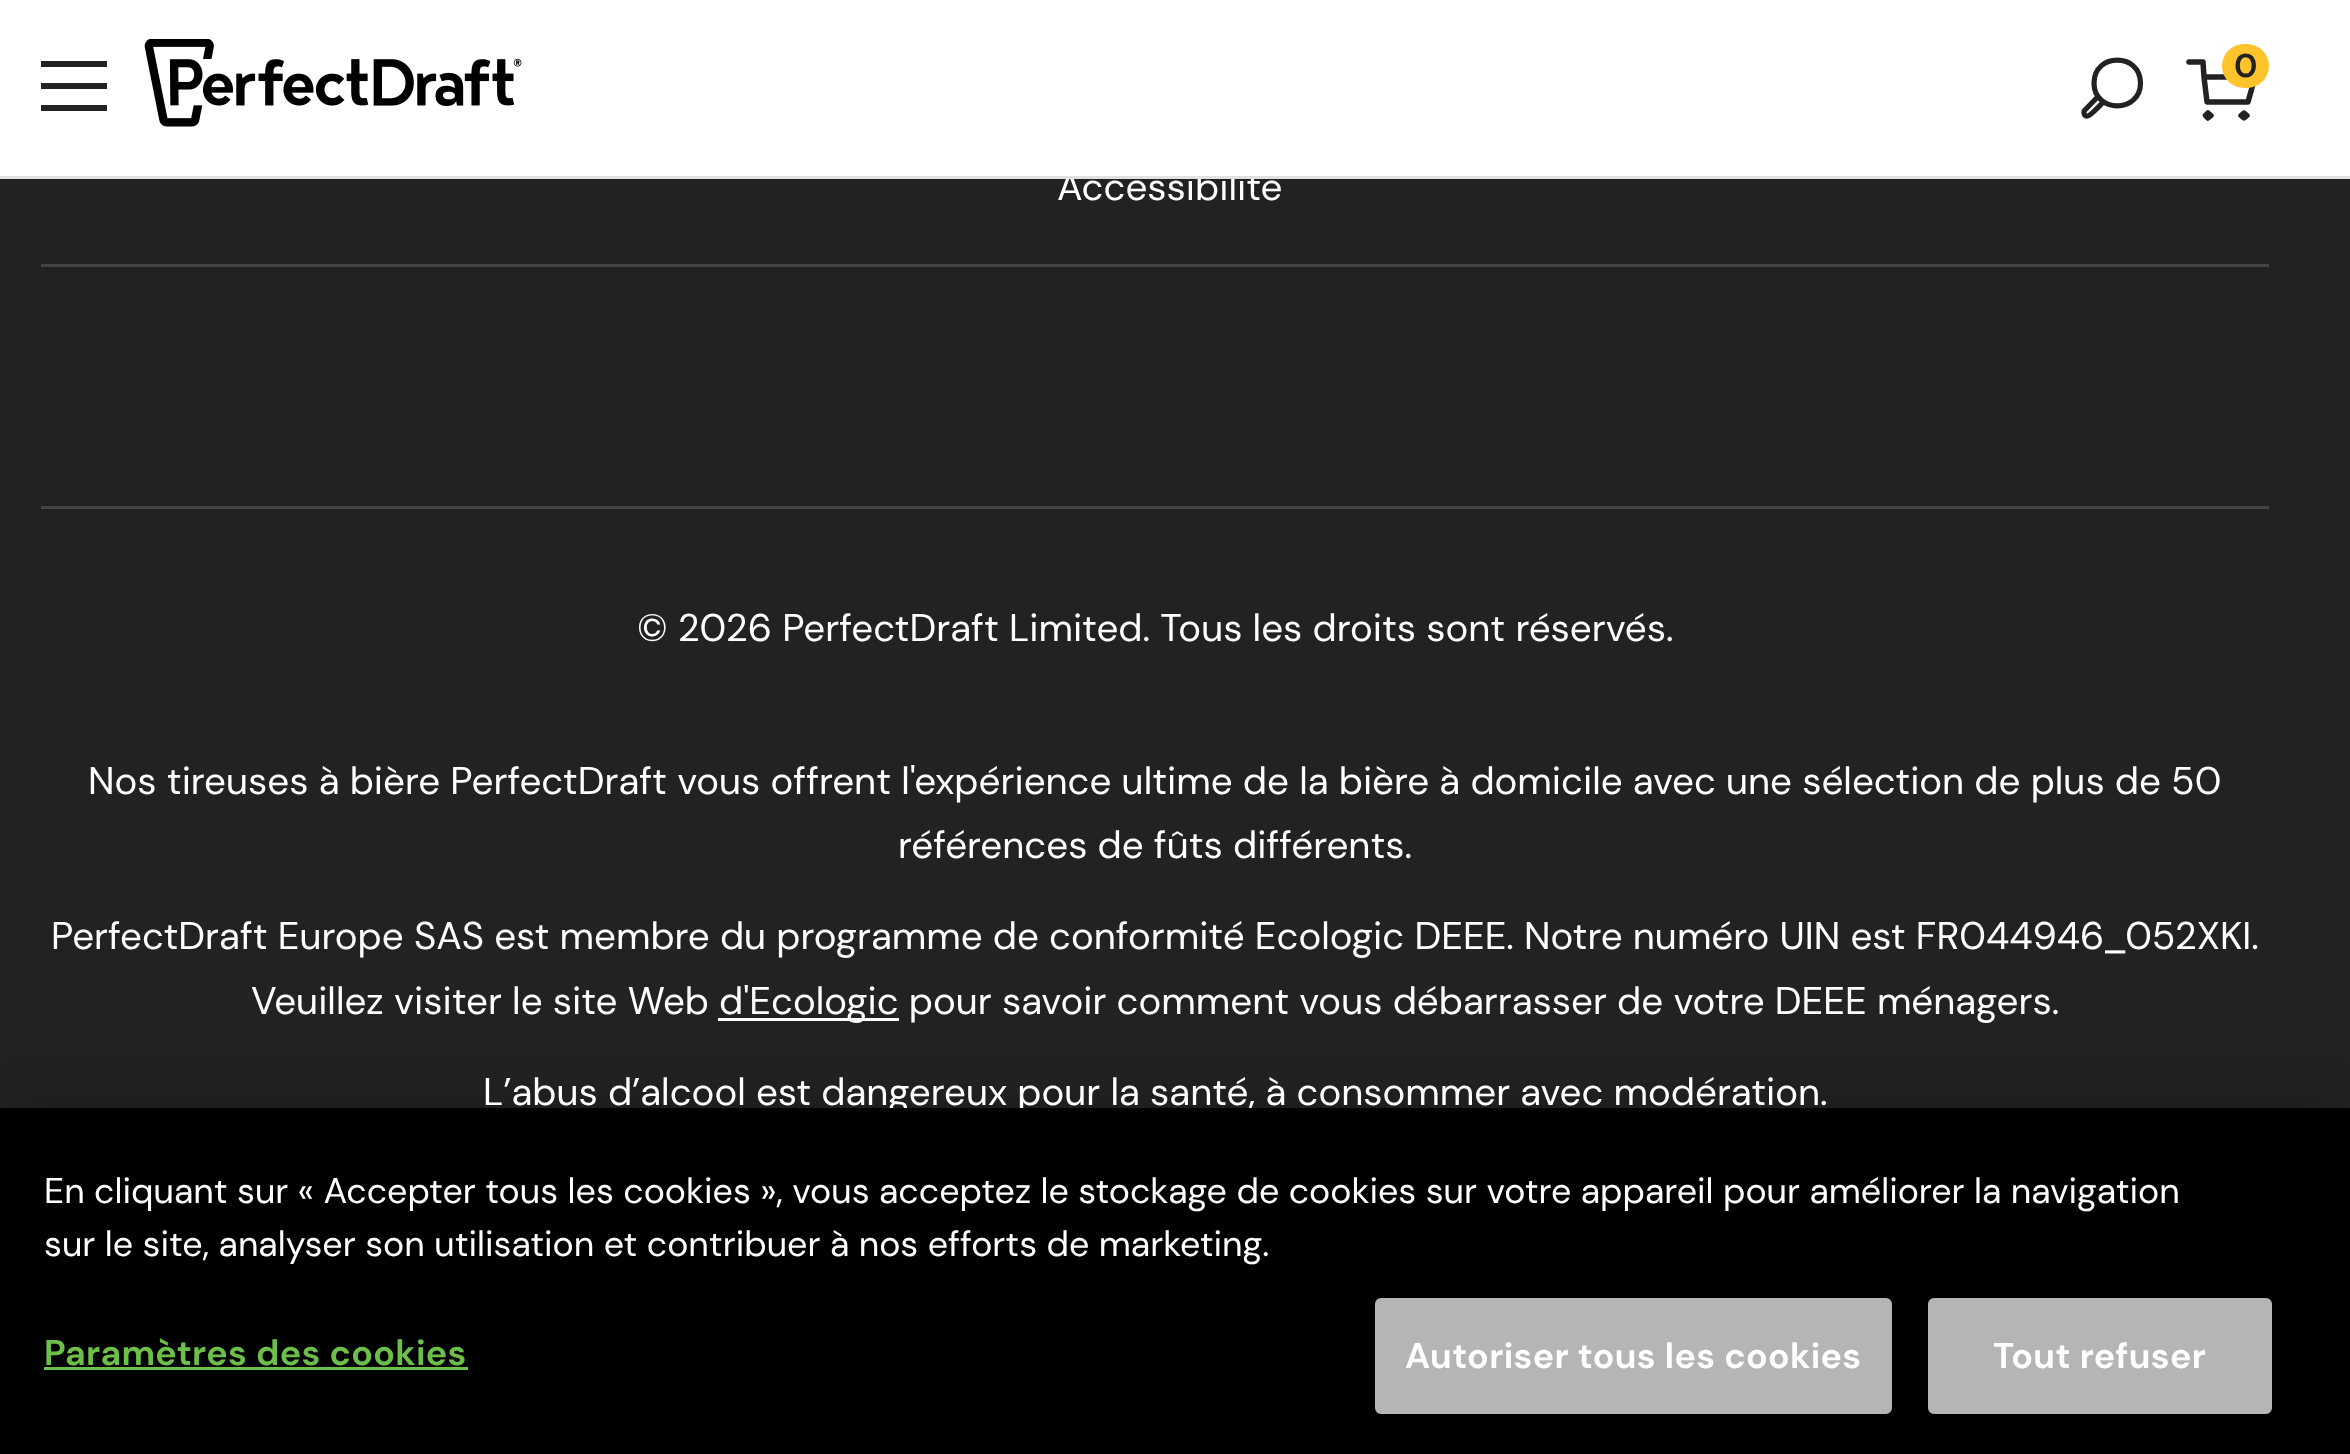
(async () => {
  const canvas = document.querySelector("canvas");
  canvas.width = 2350;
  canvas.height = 1454;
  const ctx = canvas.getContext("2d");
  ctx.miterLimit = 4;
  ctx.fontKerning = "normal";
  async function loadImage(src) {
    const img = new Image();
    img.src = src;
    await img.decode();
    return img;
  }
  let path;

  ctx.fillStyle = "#222222";
  ctx.fillRect(0, 0, 2350, 1454);
  for (const [x, y, w, h, color] of [
    [0, 0, 2350, 176, "#ffffff"],
    [41, 61, 66, 6, "#222222"],
    [41, 83, 66, 6, "#222222"],
    [41, 105, 66, 6, "#222222"],
  ]) {
    ctx.fillStyle = color;
    ctx.fillRect(x, y, w, h);
  }
  ctx.drawImage(await loadImage("img/1.png"), 144, 39, 378, 88);
  path = new Path2D("M2104.5 101C2101.5 103.5 2090.5 116 2087.5 116C2083 116.5 2083.5 110 2085 110L2099 95.5M2140.5 83C2140.5 113.5 2094 113.5 2094 83C2094 52.5 2140.5 52.5 2140.5 83Z");
  ctx.strokeStyle = "#222222";
  ctx.lineWidth = 5.2;
  ctx.lineJoin = "round";
  ctx.stroke(path);
  path = new Path2D("M2189 62H2203L2204 77M2204 77L2207 102H2248L2255 77ZM2208 113L2205.5 115.5L2208 118L2211 115.5ZM2244 113L2241 115.5L2244 118L2247 115.5Z");
  ctx.lineWidth = 5.5;
  ctx.lineCap = "round";
  ctx.stroke(path);
  ctx.fillStyle = "#ffc42c";
  ctx.beginPath();
  ctx.roundRect(2222, 44, 47, 44, 22);
  ctx.fill();
  for (const [x, y, w, h, color] of [
    [41, 264, 2228, 3, "#444444"],
    [41, 506, 2228, 3, "#444444"],
    [718, 1018, 181, 3, "#ffffff"],
  ]) {
    ctx.fillStyle = color;
    ctx.fillRect(x, y, w, h);
  }
  ctx.fillStyle = "rgba(0, 0, 0, 0.2)";
  ctx.filter = "blur(25px)";
  ctx.beginPath();
  ctx.rect(0, 1108, 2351, 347);
  ctx.fill();
  ctx.filter = "none";
  ctx.font = "bold 33px DM Sans";
  ctx.fillStyle = "#222222";
  ctx.fillText("0", 2234, 77);
  ctx.font = "38.5px DM Sans";
  ctx.fillStyle = "#ffffff";
  ctx.fillText("Accessibilité", 1057, 200);
  ctx.fillStyle = "#e1e1e1";
  ctx.fillRect(0, 176, 2350, 3);
  ctx.fillStyle = "#ffffff";
  for (const [text, x, y] of [
    ["© 2026 PerfectDraft Limited. Tous les droits sont réservés.", 637, 641],
    ["Nos tireuses à bière PerfectDraft vous offrent l'expérience ultime de la bière à domicile avec une sélection de plus de 50", 88, 794],
    ["références de fûts différents.", 898, 858],
    ["PerfectDraft Europe SAS est membre du programme de conformité Ecologic DEEE. Notre numéro UIN est FR044946_052XKI.", 51, 949],
    ["Veuillez visiter le site Web", 251, 1014],
    ["d'Ecologic pour savoir comment vous débarrasser de votre DEEE ménagers.", 719, 1014],
    ["L’abus d’alcool est dangereux pour la santé, à consommer avec modération.", 483, 1105],
  ]) {
    ctx.fillText(text, x, y);
  }
  ctx.fillStyle = "#000000";
  ctx.fillRect(0, 1108, 2350, 346);
  ctx.font = "35.77px DM Sans";
  ctx.fillStyle = "#ffffff";
  ctx.fillText("En cliquant sur « Accepter tous les cookies », vous acceptez le stockage de cookies sur votre appareil pour améliorer la navigation", 44, 1203);
  ctx.fillText("sur le site, analyser son utilisation et contribuer à nos efforts de marketing.", 44, 1256);
  ctx.letterSpacing = "0.35px";
  ctx.font = "bold 35.77px DM Sans";
  ctx.fillStyle = "#6cc04a";
  ctx.fillText("Paramètres des cookies", 44, 1365);
  ctx.fillRect(44, 1367, 424, 3);
  ctx.fillStyle = "#b5b5b5";
  ctx.beginPath();
  ctx.roundRect(1376.5, 1299.5, 514, 113, 4.5);
  ctx.fill();
  ctx.strokeStyle = "#b5b5b5";
  ctx.lineWidth = 3;
  ctx.lineJoin = "miter";
  ctx.stroke();
  ctx.fillStyle = "#ffffff";
  ctx.fillText("Autoriser tous les cookies", 1405, 1368);
  ctx.fillStyle = "#b5b5b5";
  ctx.beginPath();
  ctx.roundRect(1929.5, 1299.5, 341, 113, 4.5);
  ctx.fill();
  ctx.stroke();
  ctx.fillStyle = "#ffffff";
  ctx.fillText("Tout refuser", 1993, 1368);
})();
